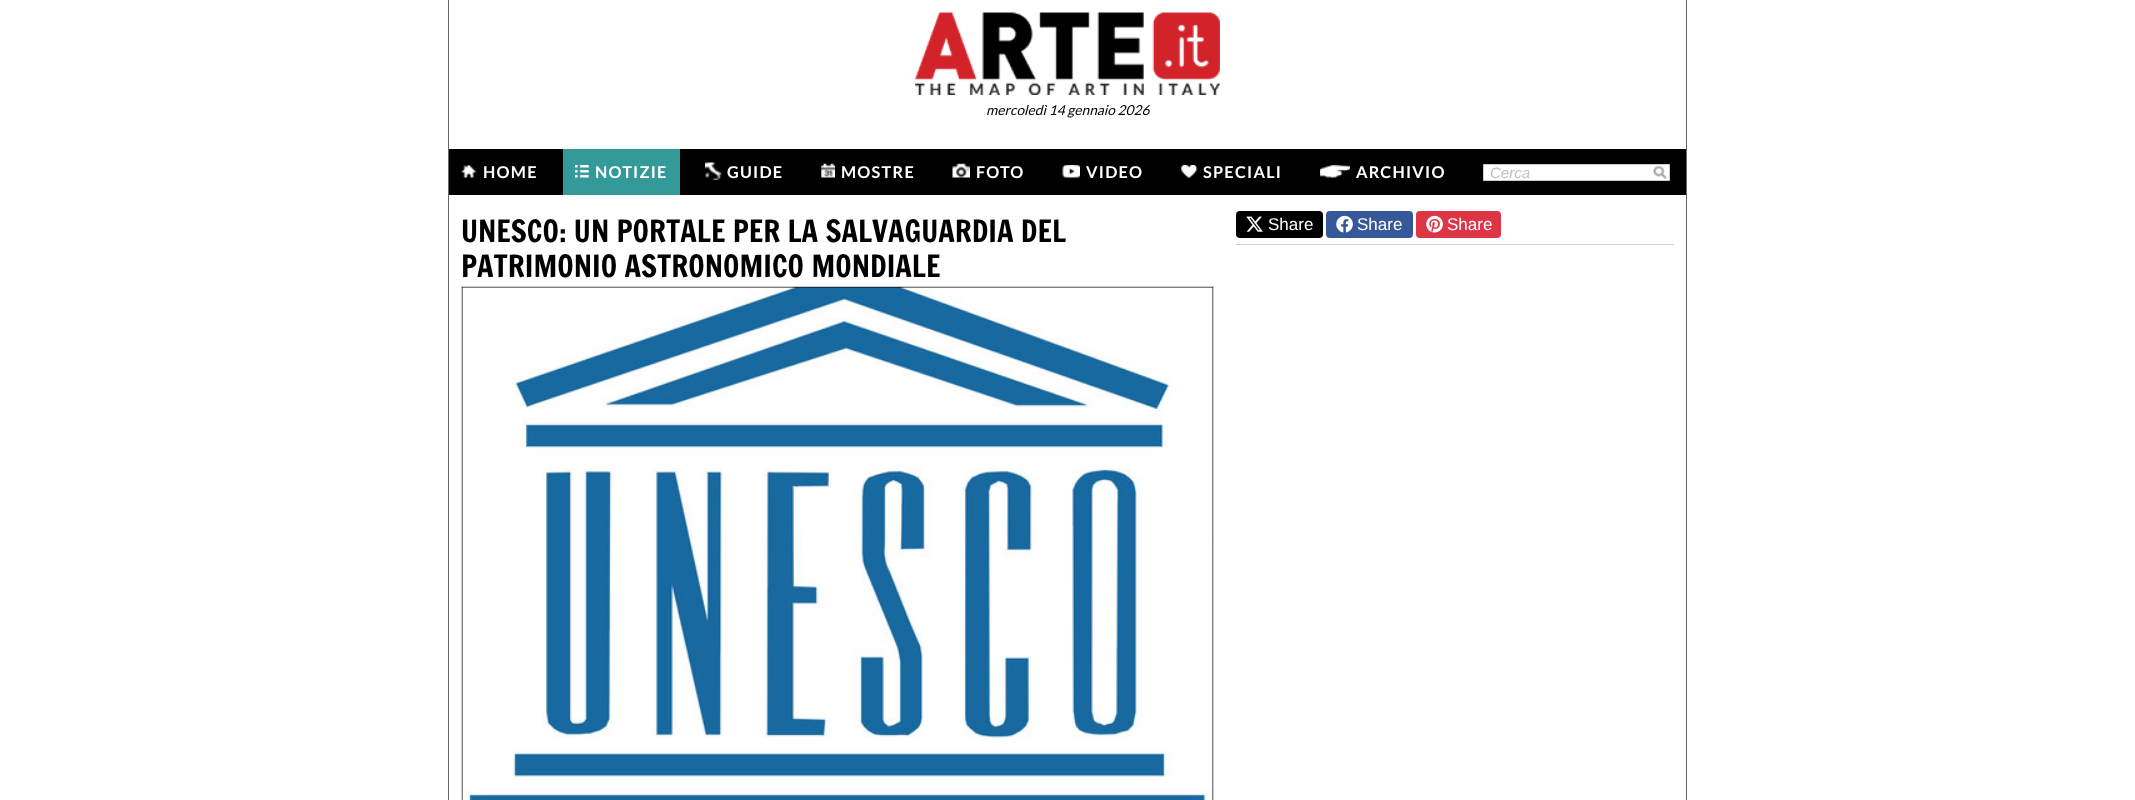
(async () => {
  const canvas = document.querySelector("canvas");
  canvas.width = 2135;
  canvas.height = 800;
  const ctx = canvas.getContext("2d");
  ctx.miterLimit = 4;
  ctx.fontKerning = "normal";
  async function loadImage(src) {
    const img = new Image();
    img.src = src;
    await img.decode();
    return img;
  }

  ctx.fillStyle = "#ffffff";
  ctx.fillRect(0, 0, 2135, 800);
  ctx.drawImage(await loadImage("img/1.png"), 915, 12, 305, 83);
  ctx.fillStyle = "#000000";
  ctx.fillRect(449, 149, 1237, 46);
  ctx.drawImage(await loadImage("img/2.png"), 461, 165, 16, 13);
  ctx.fillStyle = "#339999";
  ctx.fillRect(563, 149, 117, 46);
  ctx.drawImage(await loadImage("img/3.png"), 575, 165, 14, 13);
  ctx.drawImage(await loadImage("img/4.png"), 705, 162, 17, 18);
  ctx.drawImage(await loadImage("img/5.png"), 821, 163, 14, 15);
  ctx.drawImage(await loadImage("img/6.png"), 952, 163, 18, 15);
  ctx.drawImage(await loadImage("img/7.png"), 1062, 165, 18, 13);
  ctx.drawImage(await loadImage("img/8.png"), 1181, 165, 17, 14);
  ctx.drawImage(await loadImage("img/9.png"), 1320, 165, 30, 13);
  ctx.fillStyle = "#ffffff";
  ctx.beginPath();
  ctx.rect(1483.5, 164.5, 186, 16);
  ctx.fill();
  ctx.strokeStyle = "#cccccc";
  ctx.stroke();
  ctx.drawImage(await loadImage("img/10.png"), 1653, 166, 14, 13);
  ctx.fillStyle = "#666666";
  ctx.fillRect(1686, 0, 1, 800);
  ctx.fillRect(448, 0, 1, 800);
  ctx.fillStyle = "#000000";
  ctx.beginPath();
  ctx.rect(461.5, 286.5, 752, 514);
  ctx.fill();
  ctx.stroke();
  ctx.drawImage(await loadImage("img/11.png"), 462, 287, 751, 513);
  ctx.fillStyle = "#cccccc";
  ctx.fillRect(1236, 244, 438, 1);
  ctx.fillStyle = "#000000";
  ctx.beginPath();
  ctx.roundRect(1236, 211, 87, 27, 4);
  ctx.fill();
  ctx.drawImage(await loadImage("img/12.png"), 1246, 216, 17, 16);
  ctx.fillStyle = "#365899";
  ctx.beginPath();
  ctx.roundRect(1326, 211, 87, 27, 4);
  ctx.fill();
  ctx.drawImage(await loadImage("img/13.png"), 1336, 215, 17, 18);
  ctx.fillStyle = "#dc3545";
  ctx.beginPath();
  ctx.roundRect(1416, 211, 85, 27, 4);
  ctx.fill();
  ctx.drawImage(await loadImage("img/14.png"), 1426, 215, 17, 18);
  ctx.font = "italic 13.75px Lato";
  ctx.fillStyle = "#000000";
  ctx.fillText("mercoledì 14 gennaio 2026", 986, 115);
  ctx.letterSpacing = "1.25px";
  ctx.font = "bold 16.25px Lato";
  ctx.fillStyle = "#ffffff";
  for (const [text, x, y] of [
    ["HOME", 483, 178],
    ["NOTIZIE", 595, 178],
    ["GUIDE", 727, 178],
    ["MOSTRE", 841, 178],
    ["FOTO", 976, 178],
    ["VIDEO", 1086, 178],
    ["SPECIALI", 1203, 178],
    ["ARCHIVIO", 1356, 178],
  ]) {
    ctx.fillText(text, x, y);
  }
  ctx.letterSpacing = "0px";
  ctx.font = "italic 15px Liberation Sans";
  ctx.fillStyle = "#bebdc1";
  ctx.fillText("Cerca", 1490, 178);
  ctx.font = "30px Francois One";
  ctx.fillStyle = "#000000";
  ctx.fillText("UNESCO: UN PORTALE PER LA SALVAGUARDIA DEL", 461, 242);
  ctx.fillText("PATRIMONIO ASTRONOMICO MONDIALE", 461, 277);
  ctx.font = "17px Liberation Sans";
  ctx.fillStyle = "#ffffff";
  for (const [text, x, y] of [
    ["Share", 1268, 230],
    ["Share", 1357, 230],
    ["Share", 1447, 230],
  ]) {
    ctx.fillText(text, x, y);
  }
})();
